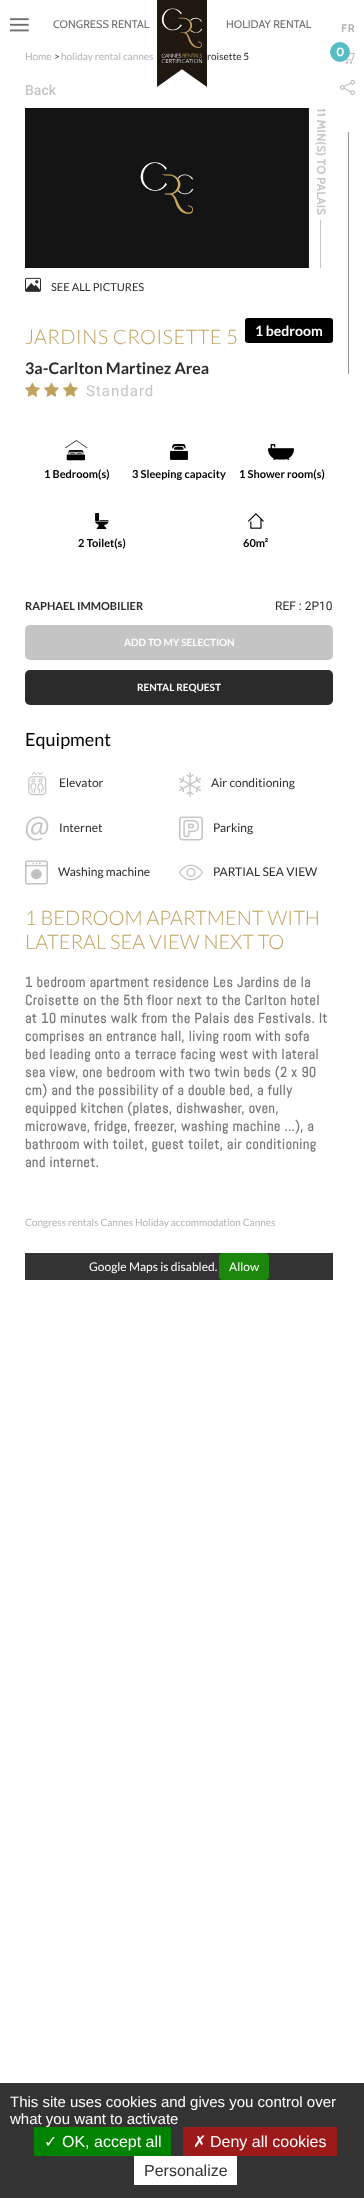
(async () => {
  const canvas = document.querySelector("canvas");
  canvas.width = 364;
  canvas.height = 2198;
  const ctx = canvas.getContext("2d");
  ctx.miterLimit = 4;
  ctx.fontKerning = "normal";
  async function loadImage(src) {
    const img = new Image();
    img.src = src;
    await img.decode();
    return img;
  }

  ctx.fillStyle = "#ffffff";
  ctx.fillRect(0, 0, 364, 2198);
  ctx.drawImage(await loadImage("img/1.png"), 10, 18, 19, 14);
  ctx.drawImage(await loadImage("img/2.png"), 157, 0, 50, 87);
  ctx.drawImage(await loadImage("img/3.png"), 345, 52, 10, 12);
  ctx.fillStyle = "#56bec2";
  ctx.beginPath();
  ctx.arc(340, 52, 10, 0, Math.PI * 2);
  ctx.fill();
  ctx.drawImage(await loadImage("img/4.png"), 340, 80, 15, 15);
  ctx.fillStyle = "#979797";
  ctx.fillRect(348, 132, 1, 242);
  ctx.drawImage(await loadImage("img/5.png"), 25, 108, 284, 160);
  ctx.fillStyle = "#c5c5c5";
  ctx.fillRect(320, 220, 1, 48);
  ctx.drawImage(await loadImage("img/6.png"), 25, 277, 16, 15);
  ctx.fillStyle = "#000000";
  ctx.beginPath();
  ctx.roundRect(245, 318, 88, 25, 3);
  ctx.fill();
  ctx.drawImage(await loadImage("img/7.png"), 25, 382, 15, 15);
  ctx.drawImage(await loadImage("img/7.png"), 44, 382, 15, 15);
  ctx.drawImage(await loadImage("img/7.png"), 63, 382, 15, 15);
  ctx.drawImage(await loadImage("img/8.png"), 65, 440, 23, 21);
  ctx.drawImage(await loadImage("img/9.png"), 170, 444, 18, 16);
  ctx.drawImage(await loadImage("img/10.png"), 268, 444, 26, 16);
  ctx.drawImage(await loadImage("img/11.png"), 95, 513, 14, 16);
  ctx.drawImage(await loadImage("img/12.png"), 248, 513, 16, 16);
  ctx.fillStyle = "#c5c5c5";
  ctx.beginPath();
  ctx.roundRect(25, 625, 308, 35, 5);
  ctx.fill();
  ctx.fillStyle = "#2b2b2b";
  ctx.beginPath();
  ctx.roundRect(25, 670, 308, 35, 5);
  ctx.fill();
  ctx.drawImage(await loadImage("img/13.png"), 28, 772, 19, 24);
  ctx.drawImage(await loadImage("img/14.png"), 179, 772, 22, 25);
  ctx.drawImage(await loadImage("img/15.png"), 25, 816, 24, 25);
  ctx.drawImage(await loadImage("img/16.png"), 179, 816, 24, 25);
  ctx.drawImage(await loadImage("img/17.png"), 25, 860, 23, 25);
  ctx.drawImage(await loadImage("img/18.png"), 179, 864, 24, 17);
  ctx.fillStyle = "#333333";
  ctx.fillRect(25, 1253, 308, 27);
  ctx.fillStyle = "#1b870b";
  ctx.beginPath();
  ctx.roundRect(219, 1253, 50, 27, 4);
  ctx.fill();
  for (const [x, y, w, h, color] of [
    [0, 2083, 364, 115, "#333333"],
    [183, 2127, 154, 29, "#9c1a1a"],
    [134, 2156, 103, 29, "#ffffff"],
  ]) {
    ctx.fillStyle = color;
    ctx.fillRect(x, y, w, h);
  }
  ctx.font = "11px Cabin";
  ctx.fillStyle = "#6f6f6f";
  ctx.fillText("CONGRESS RENTAL", 53, 28);
  ctx.fillText("HOLIDAY RENTAL", 226, 28);
  ctx.letterSpacing = "1px";
  ctx.font = "bold 11px Cabin";
  ctx.fillStyle = "#b2b2b2";
  ctx.fillText("FR", 341, 32);
  ctx.letterSpacing = "-1px";
  ctx.font = "bold 12px Cabin";
  ctx.fillStyle = "#ffffff";
  ctx.fillText("0", 336, 56);
  ctx.letterSpacing = "0px";
  ctx.font = "10px Lato";
  ctx.fillStyle = "#b2b2b2";
  ctx.fillText("Home", 25, 60);
  ctx.fillStyle = "#2b2b2b";
  ctx.fillText(">", 54, 60);
  ctx.fillStyle = "#b2b2b2";
  ctx.fillText("holiday rental cannes", 61, 60);
  ctx.fillStyle = "#2b2b2b";
  ctx.fillText("roisette 5", 207, 60);
  ctx.font = "500 14px Roboto";
  ctx.fillStyle = "#c5c5c5";
  ctx.fillText("Back", 25, 95);
  ctx.font = "bold 12px Cabin";
  ctx.save();
  ctx.translate(317, 108);
  ctx.rotate(90 * Math.PI / 180);
  ctx.fillText("11 MIN(S) TO PALAIS", 0, 0);
  ctx.restore();
  ctx.font = "11px Lato";
  ctx.fillStyle = "#2b2b2b";
  ctx.fillText("SEE ALL PICTURES", 51, 291);
  ctx.letterSpacing = "0.4px";
  ctx.font = "300 20px Lato";
  ctx.fillStyle = "#c0a25e";
  ctx.fillText("JARDINS CROISETTE 5", 25, 344);
  ctx.letterSpacing = "0px";
  ctx.font = "bold 14px Lato";
  ctx.fillStyle = "#ffffff";
  ctx.fillText("1 bedroom", 255, 336);
  ctx.font = "bold 16px Lato";
  ctx.fillStyle = "#2b2b2b";
  ctx.fillText("3a-Carlton Martinez Area", 25, 374);
  ctx.letterSpacing = "1px";
  ctx.font = "15px Roboto";
  ctx.fillStyle = "#c5c5c5";
  ctx.fillText("Standard", 86, 396);
  ctx.letterSpacing = "0px";
  ctx.font = "bold 11px Lato";
  ctx.fillStyle = "#000000";
  for (const [text, x, y] of [
    ["1 Bedroom(s)", 44, 478],
    ["3 Sleeping capacity", 132, 478],
    ["1 Shower room(s)", 239, 478],
    ["2 Toilet(s)", 78, 547],
    ["60m²", 243, 547],
  ]) {
    ctx.fillText(text, x, y);
  }
  ctx.fillStyle = "#2b2b2b";
  ctx.fillText("RAPHAEL IMMOBILIER", 25, 610);
  ctx.font = "12px Roboto";
  ctx.fillText("REF : 2P10", 275, 610);
  ctx.font = "bold 10px Lato";
  ctx.fillStyle = "#ffffff";
  ctx.fillText("ADD TO MY SELECTION", 124, 646);
  ctx.fillText("RENTAL REQUEST", 137, 691);
  ctx.font = "18px Lato";
  ctx.fillStyle = "#000000";
  ctx.fillText("Equipment", 25, 746);
  ctx.font = "12px Lato";
  ctx.fillStyle = "#2b2b2b";
  for (const [text, x, y] of [
    ["Elevator", 59, 787],
    ["Air conditioning", 211, 787],
    ["Internet", 59, 832],
    ["Parking", 213, 832],
    ["Washing machine", 58, 876],
    ["PARTIAL SEA VIEW", 213, 876],
  ]) {
    ctx.fillText(text, x, y);
  }
  ctx.font = "300 20px Lato";
  ctx.fillStyle = "#c0a25e";
  ctx.fillText("1 BEDROOM APARTMENT WITH", 25, 925);
  ctx.fillText("LATERAL SEA VIEW NEXT TO", 25, 949);
  ctx.letterSpacing = "0.5px";
  ctx.font = "bold 14px Abel";
  ctx.fillStyle = "#777777";
  for (const [text, x, y] of [
    ["1 bedroom apartment residence Les Jardins de la", 25, 987],
    ["Croisette on the 5th floor next to the Carlton hotel", 25, 1005],
    ["at 10 minutes walk from the Palais des Festivals. It", 25, 1023],
    ["comprises an entrance hall, living room with sofa", 25, 1041],
    ["bed leading onto a terrace facing west with lateral", 25, 1059],
    ["sea view, one bedroom with two twin beds (2 x 90", 25, 1077],
    ["cm) and the possibility of a double bed, a fully", 25, 1095],
    ["equipped kitchen (plates, dishwasher, oven,", 25, 1113],
    ["microwave, fridge, freezer, washing machine ...), a", 25, 1131],
    ["bathroom with toilet, guest toilet, air conditioning", 25, 1149],
    ["and internet.", 25, 1167],
  ]) {
    ctx.fillText(text, x, y);
  }
  ctx.letterSpacing = "0px";
  ctx.font = "10px Lato";
  ctx.fillStyle = "#b2b2b2";
  ctx.fillText("Congress rentals Cannes Holiday accommodation Cannes", 25, 1226);
  ctx.font = "12px Lato";
  ctx.fillStyle = "#ffffff";
  ctx.fillText("Google Maps is disabled.", 89, 1271);
  ctx.fillText("Allow", 229, 1271);
  ctx.font = "15px Liberation Sans";
  ctx.fillText("This site uses cookies and gives you control over", 10, 2107);
  ctx.fillText("what you want to activate", 10, 2124);
  ctx.fillStyle = "#008300";
  ctx.fillRect(34, 2127, 137, 29);
  ctx.font = "16px DejaVu Sans";
  ctx.fillStyle = "#ffffff";
  ctx.fillText("✓", 44, 2147);
  ctx.font = "16px Liberation Sans";
  ctx.fillText("OK, accept all", 62, 2147);
  ctx.font = "16px DejaVu Sans";
  ctx.fillText("✗", 193, 2147);
  ctx.font = "16px Liberation Sans";
  ctx.fillText("Deny all cookies", 210, 2147);
  ctx.fillStyle = "#333333";
  ctx.fillText("Personalize", 144, 2176);
})();
